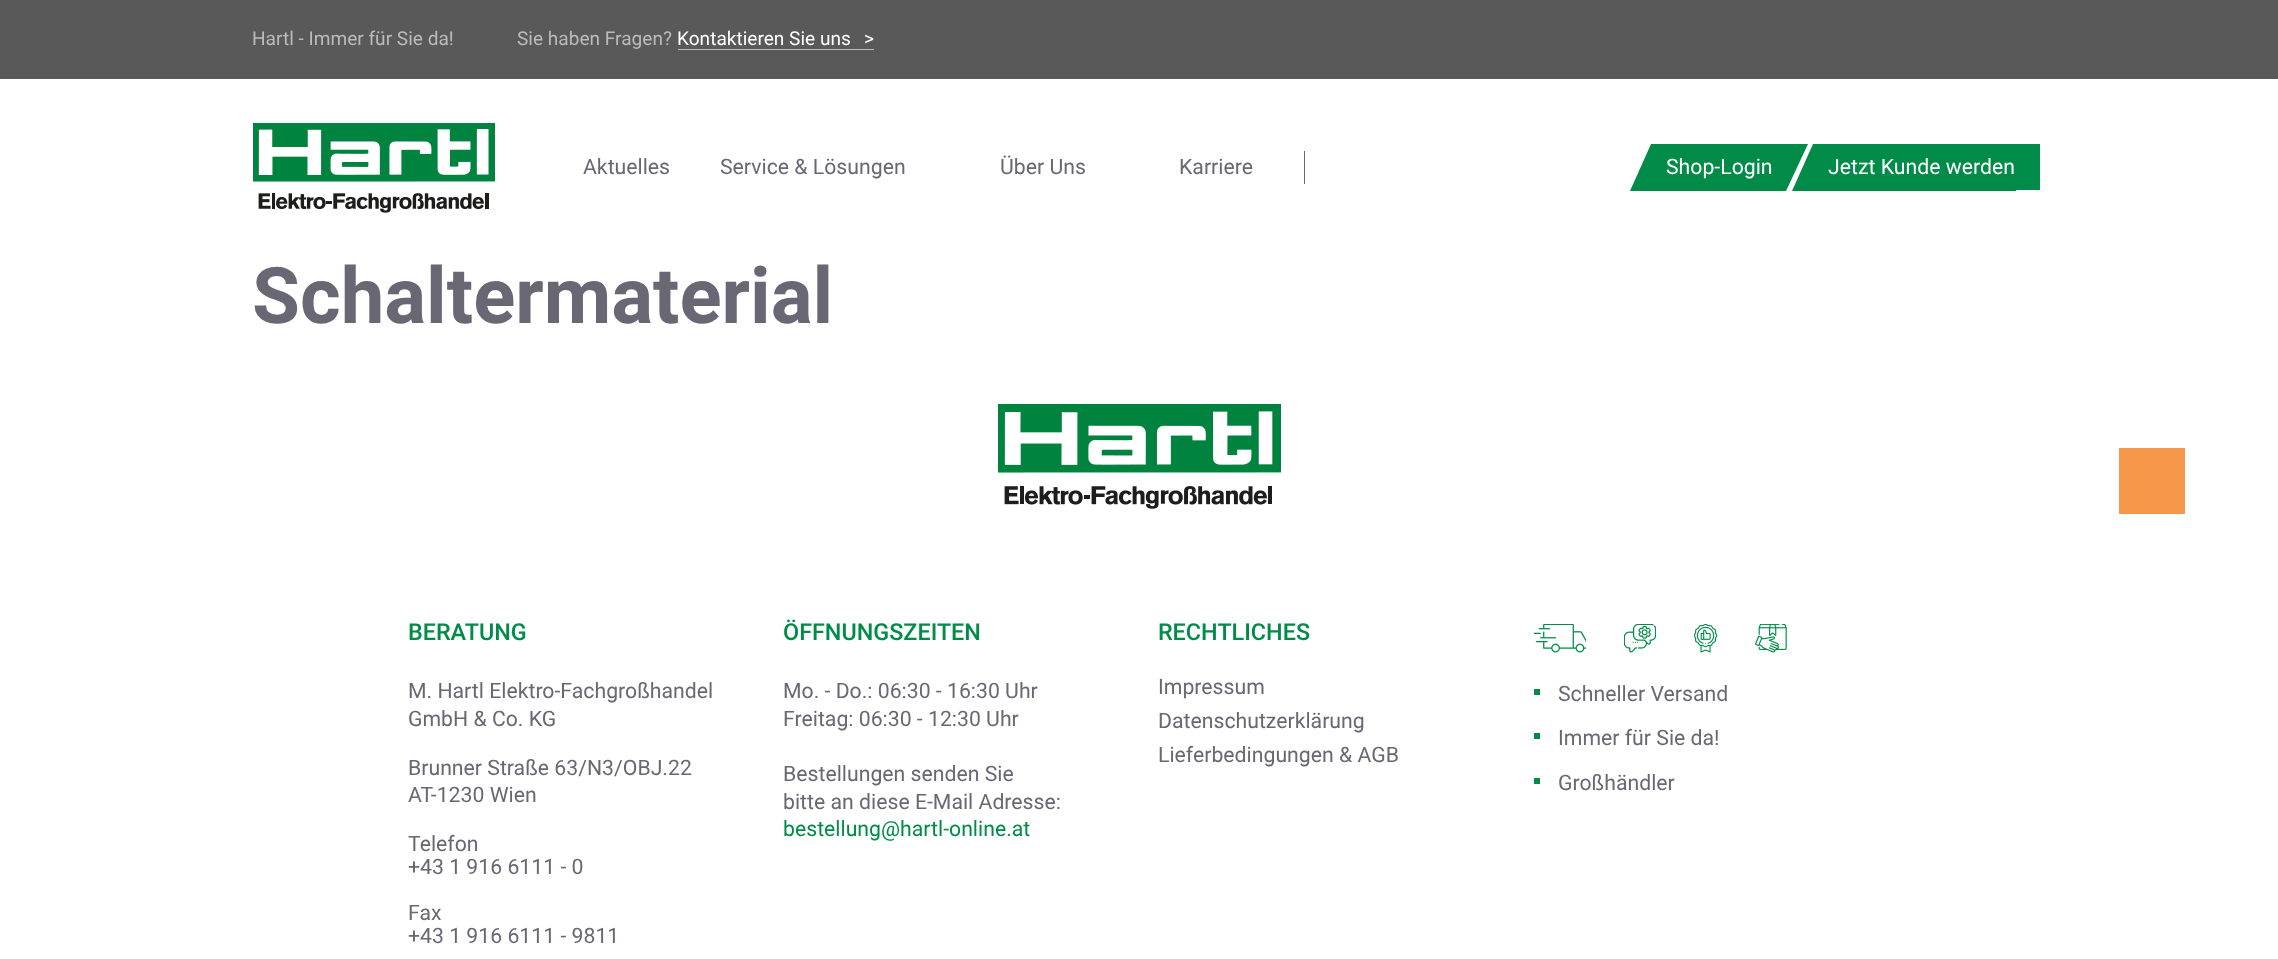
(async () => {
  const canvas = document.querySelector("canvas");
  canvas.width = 2278;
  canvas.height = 959;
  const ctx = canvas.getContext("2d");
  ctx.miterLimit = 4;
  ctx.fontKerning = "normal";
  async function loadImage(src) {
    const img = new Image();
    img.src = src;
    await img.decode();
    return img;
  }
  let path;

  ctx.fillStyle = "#ffffff";
  ctx.fillRect(0, 0, 2278, 959);
  ctx.fillStyle = "#595959";
  ctx.fillRect(0, 0, 2278, 79);
  ctx.fillStyle = "#bbbbbb";
  ctx.fillRect(678, 49, 196, 1);
  ctx.drawImage(await loadImage("img/1.png"), 253, 123, 242, 90);
  ctx.fillStyle = "#696773";
  ctx.fillRect(1304, 151, 1, 33);
  ctx.fillStyle = "#008c48";
  path = new Path2D("M1651 144H1808L1786 191H1630Z");
  ctx.fill(path);
  path = new Path2D("M1813 144H2038L2016 191H1792Z");
  ctx.fill(path);
  ctx.fillRect(2016, 144, 24, 46);
  ctx.fillStyle = "#f79749";
  ctx.fillRect(2119, 448, 66, 66);
  ctx.drawImage(await loadImage("img/2.png"), 998, 404, 283, 105);
  ctx.drawImage(await loadImage("img/3.png"), 1534, 624, 52, 29);
  ctx.drawImage(await loadImage("img/4.png"), 1624, 624, 32, 29);
  ctx.drawImage(await loadImage("img/5.png"), 1694, 624, 24, 29);
  ctx.drawImage(await loadImage("img/6.png"), 1755, 624, 32, 29);
  for (const [x, y, w, h, color] of [
    [1534, 689, 6, 6, "#008c48"],
    [1534, 733, 6, 6, "#008c48"],
    [1534, 778, 6, 6, "#008c48"],
  ]) {
    ctx.fillStyle = color;
    ctx.fillRect(x, y, w, h);
  }
  ctx.font = "19.1px Roboto";
  ctx.fillStyle = "#bbbbbb";
  ctx.fillText("Hartl - Immer für Sie da!", 252, 45);
  ctx.fillText("Sie haben Fragen?", 517, 45);
  ctx.fillStyle = "#ffffff";
  ctx.fillText("Kontaktieren Sie uns", 677, 45);
  ctx.fillText(">", 864, 45);
  ctx.font = "21.25px Roboto";
  ctx.fillStyle = "#696773";
  for (const [text, x, y] of [
    ["Aktuelles", 583, 174],
    ["Service & Lösungen", 720, 174],
    ["Über Uns", 1000, 174],
    ["Karriere", 1179, 174],
  ]) {
    ctx.fillText(text, x, y);
  }
  ctx.fillStyle = "#ffffff";
  ctx.fillText("Shop-Login", 1666, 174);
  ctx.fillText("Jetzt Kunde werden", 1828, 174);
  ctx.font = "bold 78px Roboto";
  ctx.fillStyle = "#696773";
  ctx.fillText("Schaltermaterial", 252, 323);
  ctx.font = "500 23.4px Roboto";
  ctx.fillStyle = "#008c48";
  ctx.fillText("BERATUNG", 408, 640);
  ctx.font = "21.25px Roboto";
  ctx.fillStyle = "#696773";
  for (const [text, x, y] of [
    ["M. Hartl Elektro-Fachgroßhandel", 408, 698],
    ["GmbH & Co. KG", 408, 726],
    ["Brunner Straße 63/N3/OBJ.22", 408, 775],
    ["AT-1230 Wien", 408, 802],
    ["Telefon", 408, 851],
    ["+43 1 916 6111 - 0", 408, 874],
    ["Fax", 408, 920],
    ["+43 1 916 6111 - 9811", 408, 943],
  ]) {
    ctx.fillText(text, x, y);
  }
  ctx.font = "500 23.4px Roboto";
  ctx.fillStyle = "#008c48";
  ctx.fillText("ÖFFNUNGSZEITEN", 783, 640);
  ctx.font = "21.25px Roboto";
  ctx.fillStyle = "#696773";
  for (const [text, x, y] of [
    ["Mo. - Do.: 06:30 - 16:30 Uhr", 783, 698],
    ["Freitag: 06:30 - 12:30 Uhr", 783, 726],
    ["Bestellungen senden Sie", 783, 781],
    ["bitte an diese E-Mail Adresse:", 783, 809],
  ]) {
    ctx.fillText(text, x, y);
  }
  ctx.fillStyle = "#008c48";
  ctx.fillText("bestellung@hartl-online.at", 783, 836);
  ctx.font = "500 23.4px Roboto";
  ctx.fillText("RECHTLICHES", 1158, 640);
  ctx.font = "21.25px Roboto";
  ctx.fillStyle = "#696773";
  for (const [text, x, y] of [
    ["Impressum", 1158, 694],
    ["Datenschutzerklärung", 1158, 728],
    ["Lieferbedingungen & AGB", 1158, 762],
    ["Schneller Versand", 1558, 701],
    ["Immer für Sie da!", 1558, 745],
    ["Großhändler", 1558, 790],
  ]) {
    ctx.fillText(text, x, y);
  }
})();
